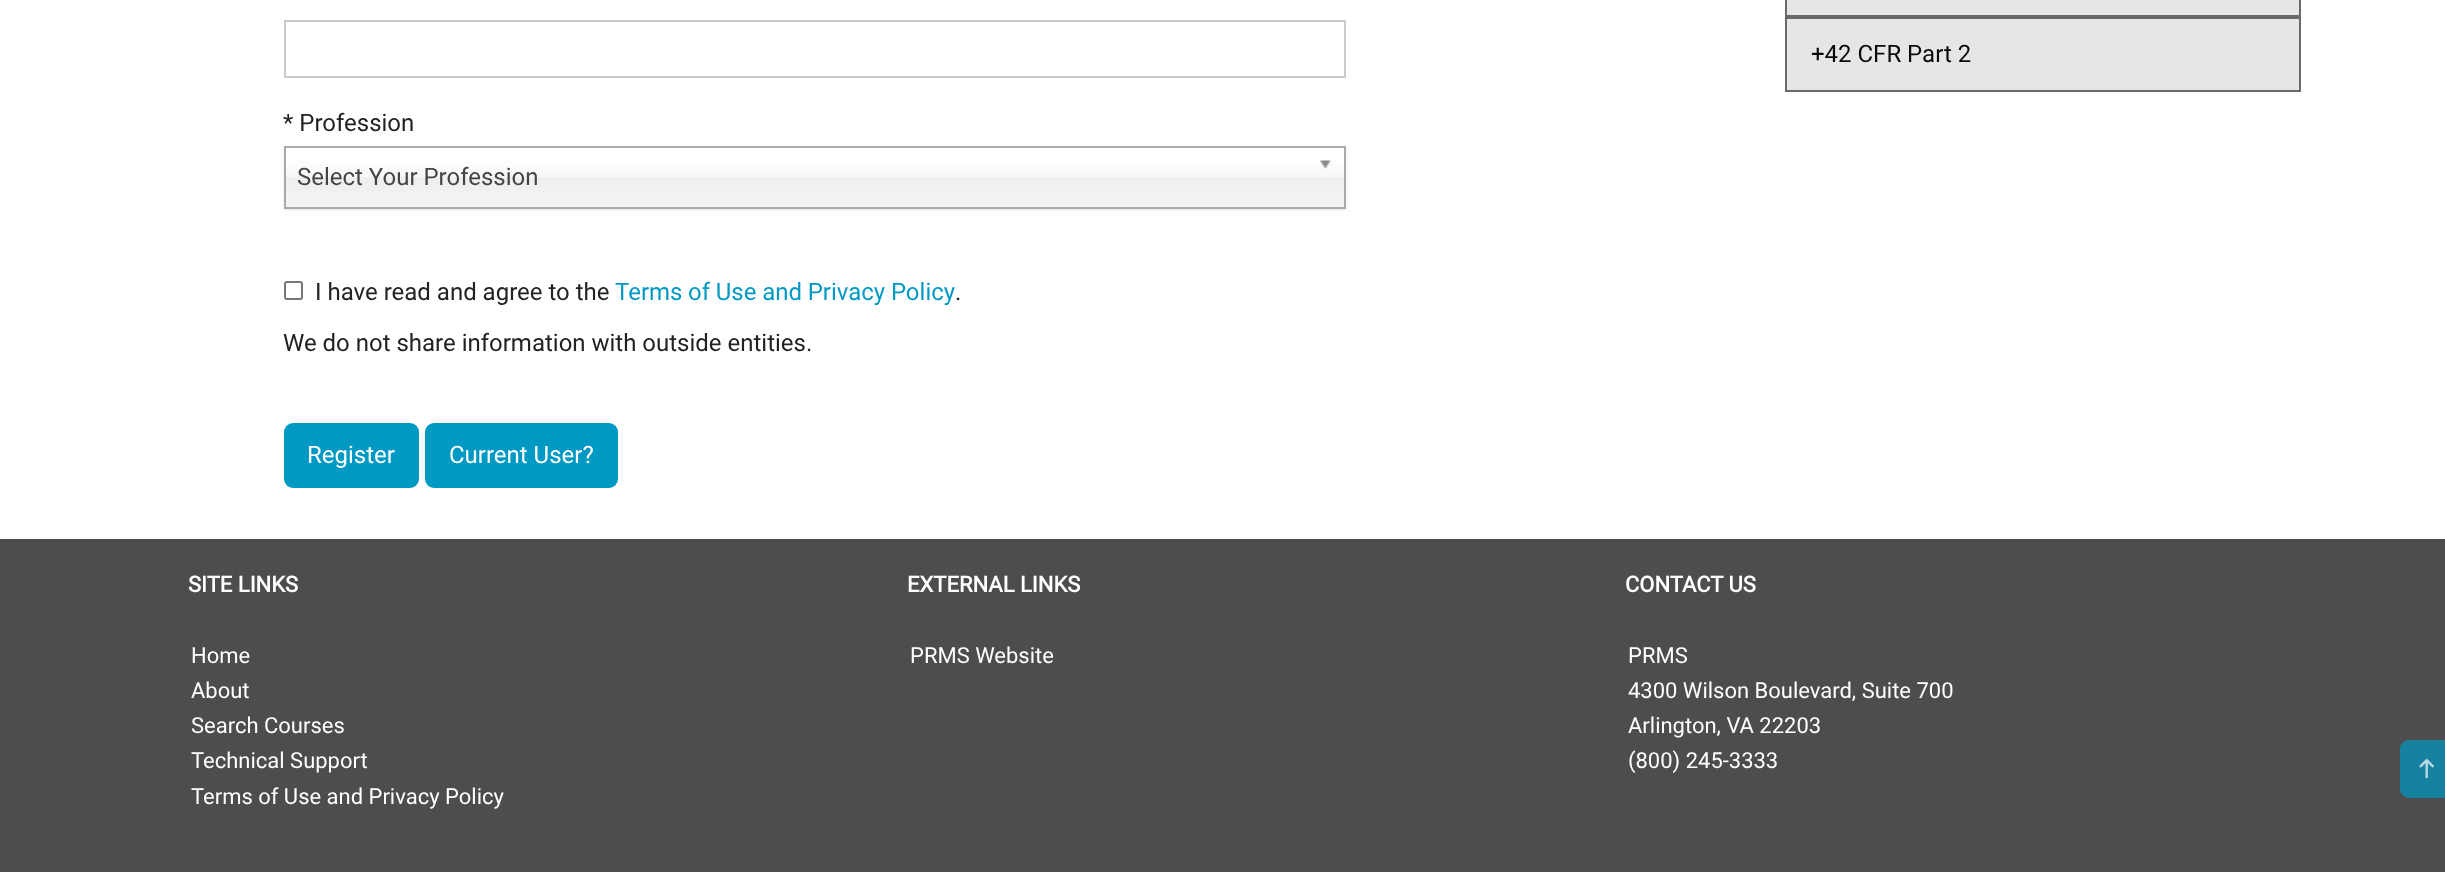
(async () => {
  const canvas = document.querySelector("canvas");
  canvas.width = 2445;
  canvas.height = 872;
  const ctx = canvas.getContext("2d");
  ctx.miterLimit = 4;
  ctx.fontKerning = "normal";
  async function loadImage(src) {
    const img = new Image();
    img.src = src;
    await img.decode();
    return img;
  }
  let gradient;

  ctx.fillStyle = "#ffffff";
  ctx.fillRect(0, 0, 2445, 872);
  ctx.fillStyle = "#e6e6e6";
  ctx.fillRect(1787, 0, 512, 90);
  ctx.strokeStyle = "#6a6a6a";
  ctx.lineWidth = 2;
  ctx.strokeRect(1786, -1, 514, 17);
  ctx.strokeRect(1786, 18, 514, 73);
  ctx.strokeStyle = "#cacaca";
  ctx.strokeRect(285, 21, 1060, 56);
  ctx.fillStyle = "rgba(0, 0, 0, 0.1)";
  ctx.filter = "blur(1px)";
  ctx.beginPath();
  ctx.rect(284, 147, 1062, 63);
  ctx.fill();
  ctx.filter = "none";
  gradient = ctx.createLinearGradient(815, 147, 815, 207);
  gradient.addColorStop(0.2, "#ffffff");
  gradient.addColorStop(0.5, "#f6f6f6");
  gradient.addColorStop(0.52, "#eeeeee");
  gradient.addColorStop(1, "#f4f4f4");
  ctx.fillStyle = gradient;
  ctx.fillRect(286, 148, 1058, 59);
  ctx.strokeStyle = "#aaaaaa";
  ctx.strokeRect(285, 147, 1060, 61);
  ctx.drawImage(await loadImage("img/1.png"), 1319, 160, 12, 9);
  ctx.beginPath();
  ctx.roundRect(285, 282, 17, 17, 2);
  ctx.strokeStyle = "#767676";
  ctx.stroke();
  ctx.fillStyle = "#0099c3";
  ctx.beginPath();
  ctx.roundRect(284, 423, 135, 65, 9);
  ctx.fill();
  ctx.beginPath();
  ctx.roundRect(425, 423, 193, 65, 9);
  ctx.fill();
  ctx.fillStyle = "#4d4d4d";
  ctx.fillRect(0, 539, 2445, 333);
  ctx.fillStyle = "#1782a0";
  ctx.beginPath();
  ctx.roundRect(2400, 740, 45, 58, [9, 0, 0, 9]);
  ctx.fill();
  ctx.drawImage(await loadImage("img/2.png"), 2419, 759, 15, 20);
  ctx.font = "24px Roboto";
  ctx.fillStyle = "#0a0a0a";
  ctx.fillText("+42 CFR Part 2", 1811, 62);
  ctx.fillStyle = "#222222";
  ctx.fillText("* Profession", 283, 131);
  ctx.fillStyle = "#444444";
  ctx.fillText("Select Your Profession", 297, 185);
  ctx.fillStyle = "#222222";
  ctx.fillText("I have read and agree to the", 315, 300);
  ctx.wordSpacing = "-0.25px";
  ctx.fillStyle = "#0099c3";
  ctx.fillText("Terms of Use and Privacy Policy", 615, 300);
  ctx.wordSpacing = "0px";
  ctx.fillStyle = "#222222";
  ctx.fillText(".", 955, 300);
  ctx.fillText("We do not share information with outside entities.", 283, 351);
  ctx.fillStyle = "#ffffff";
  ctx.fillText("Register", 307, 463);
  ctx.fillText("Current User?", 449, 463);
  ctx.font = "bold 22px Roboto";
  ctx.fillText("SITE LINKS", 188, 592);
  ctx.font = "22px Roboto";
  for (const [text, x, y] of [
    ["Home", 191, 663],
    ["About", 191, 698],
    ["Search Courses", 191, 733],
    ["Technical Support", 191, 768],
    ["Terms of Use and Privacy Policy", 191, 804],
  ]) {
    ctx.fillText(text, x, y);
  }
  ctx.font = "bold 22px Roboto";
  ctx.fillText("EXTERNAL LINKS", 907, 592);
  ctx.font = "22px Roboto";
  ctx.fillText("PRMS Website", 910, 663);
  ctx.font = "bold 22px Roboto";
  ctx.fillText("CONTACT US", 1625, 592);
  ctx.font = "22px Roboto";
  for (const [text, x, y] of [
    ["PRMS", 1628, 663],
    ["4300 Wilson Boulevard, Suite 700", 1628, 698],
    ["Arlington, VA 22203", 1628, 733],
    ["(800) 245-3333", 1628, 768],
  ]) {
    ctx.fillText(text, x, y);
  }
})();
